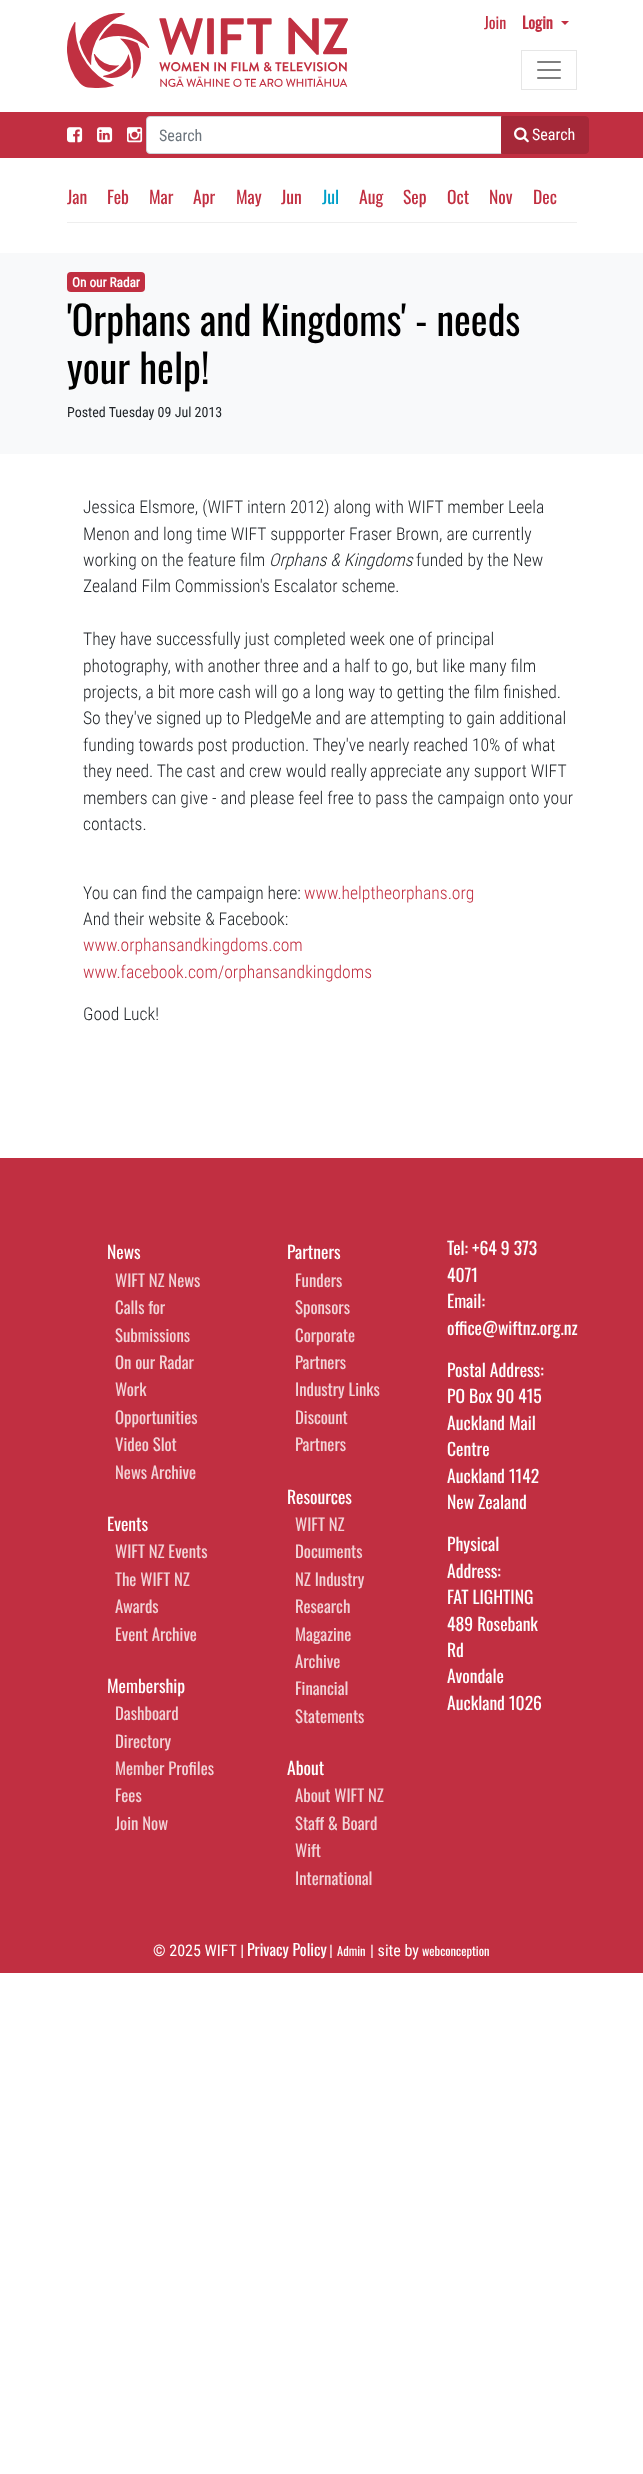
(async () => {
  const canvas = document.querySelector("canvas");
  canvas.width = 643;
  canvas.height = 2474;
  const ctx = canvas.getContext("2d");
  ctx.miterLimit = 4;
  ctx.fontKerning = "normal";
  async function loadImage(src) {
    const img = new Image();
    img.src = src;
    await img.decode();
    return img;
  }
  let path;

  ctx.fillStyle = "#ffffff";
  ctx.fillRect(0, 0, 643, 2474);
  ctx.drawImage(await loadImage("img/1.png"), 67, 13, 281, 75);
  ctx.strokeStyle = "#e6e6e6";
  ctx.strokeRect(521.5, 50.5, 55, 39);
  ctx.drawImage(await loadImage("img/2.png"), 537, 61, 24, 18);
  ctx.fillStyle = "#c12f41";
  path = new Path2D("M561 21H569L565 25Z");
  ctx.fill(path);
  ctx.fillRect(0, 112, 643, 46);
  ctx.drawImage(await loadImage("img/3.png"), 67, 127, 16, 16);
  ctx.drawImage(await loadImage("img/4.png"), 97, 127, 16, 16);
  ctx.drawImage(await loadImage("img/5.png"), 127, 127, 16, 16);
  ctx.fillStyle = "#ffffff";
  ctx.beginPath();
  ctx.roundRect(146.5, 116.5, 355, 37, [3.5, 0, 0, 3.5]);
  ctx.fill();
  ctx.strokeStyle = "#ced4da";
  ctx.stroke();
  ctx.fillStyle = "#a52838";
  ctx.beginPath();
  ctx.roundRect(501.5, 116.5, 87, 37, [0, 3.5, 3.5, 0]);
  ctx.fill();
  ctx.strokeStyle = "#a52838";
  ctx.stroke();
  ctx.drawImage(await loadImage("img/6.png"), 514, 127, 15, 16);
  ctx.fillStyle = "#eeeeee";
  ctx.fillRect(67, 222, 510, 1);
  ctx.fillStyle = "#f8f9fa";
  ctx.fillRect(0, 253, 643, 201);
  ctx.fillStyle = "#c12f41";
  ctx.beginPath();
  ctx.roundRect(67, 272, 78, 20, 4);
  ctx.fill();
  ctx.fillRect(0, 1158, 643, 815);
  ctx.font = "16px Oswald";
  ctx.fillText("Join", 484, 29);
  ctx.font = "bold 16px Oswald";
  ctx.fillText("Login", 522, 29);
  ctx.font = "16px Roboto Condensed";
  ctx.fillStyle = "#6c757d";
  ctx.fillText("Search", 159, 141);
  ctx.fillStyle = "#ffffff";
  ctx.fillText("Search", 532, 140);
  ctx.font = "17.6px Oswald";
  ctx.fillStyle = "#c12f41";
  for (const [text, x, y] of [
    ["Jan", 67, 204],
    ["Feb", 107, 204],
    ["Mar", 149, 204],
    ["Apr", 193, 204],
    ["May", 236, 204],
    ["Jun", 281, 204],
  ]) {
    ctx.fillText(text, x, y);
  }
  ctx.fillStyle = "#00a0c9";
  ctx.fillText("Jul", 322, 204);
  ctx.fillStyle = "#c12f41";
  for (const [text, x, y] of [
    ["Aug", 359, 204],
    ["Sep", 403, 204],
    ["Oct", 447, 204],
    ["Nov", 489, 204],
    ["Dec", 533, 204],
  ]) {
    ctx.fillText(text, x, y);
  }
  ctx.font = "bold 13.25px Roboto Condensed";
  ctx.fillStyle = "#ffffff";
  ctx.fillText("On our Radar", 72, 287);
  ctx.font = "40px Oswald";
  ctx.fillStyle = "#000000";
  ctx.fillText("'Orphans and Kingdoms' - needs", 67, 336);
  ctx.fillText("your help!", 67, 384);
  ctx.font = "14px Roboto Condensed";
  ctx.fillStyle = "#212529";
  ctx.fillText("Posted Tuesday 09 Jul 2013", 67, 417);
  ctx.font = "300 17.6px Roboto Condensed";
  for (const [text, x, y] of [
    ["Jessica Elsmore, (WIFT intern 2012) along with WIFT member Leela", 83, 513],
    ["Menon and long time WIFT suppporter Fraser Brown, are currently", 83, 540],
    ["working on the feature film", 83, 566],
  ]) {
    ctx.fillText(text, x, y);
  }
  ctx.font = "italic 300 17.6px Roboto Condensed";
  ctx.fillText("Orphans & Kingdoms", 269, 566);
  ctx.font = "300 17.6px Roboto Condensed";
  for (const [text, x, y] of [
    ["funded by the New", 416, 566],
    ["Zealand Film Commission's Escalator scheme.", 83, 592],
    ["They have successfully just completed week one of principal", 83, 645],
    ["photography, with another three and a half to go, but like many film", 83, 672],
    ["projects, a bit more cash will go a long way to getting the film finished.", 83, 698],
    ["So they've signed up to PledgeMe and are attempting to gain additional", 83, 724],
    ["funding towards post production. They've nearly reached 10% of what", 83, 751],
    ["they need. The cast and crew would really", 83, 777],
    ["appreciate any support WIFT", 370, 777],
    ["members can give - and please feel free to pass the campaign onto your", 83, 804],
    ["contacts.", 83, 830],
    ["You can find the campaign here:", 83, 899],
  ]) {
    ctx.fillText(text, x, y);
  }
  ctx.fillStyle = "#c12f41";
  ctx.fillText("www.helptheorphans.org", 304, 899);
  ctx.fillStyle = "#212529";
  ctx.fillText("And their website & Facebook:", 83, 925);
  ctx.fillStyle = "#c12f41";
  ctx.fillText("www.orphansandkingdoms.com", 83, 951);
  ctx.fillText("www.facebook.com/orphansandkingdoms", 83, 978);
  ctx.fillStyle = "#212529";
  ctx.fillText("Good Luck!", 83, 1020);
  ctx.font = "17.6px Oswald";
  ctx.fillStyle = "#ffffff";
  ctx.fillText("News", 107, 1259);
  ctx.font = "16.75px Oswald";
  ctx.fillStyle = "#f3d3d7";
  for (const [text, x, y] of [
    ["WIFT NZ News", 115, 1287],
    ["Calls for", 115, 1314],
    ["Submissions", 115, 1342],
    ["On our Radar", 115, 1369],
    ["Work", 115, 1396],
    ["Opportunities", 115, 1424],
    ["Video Slot", 115, 1451],
    ["News Archive", 115, 1479],
  ]) {
    ctx.fillText(text, x, y);
  }
  ctx.font = "17.6px Oswald";
  ctx.fillStyle = "#ffffff";
  ctx.fillText("Events", 107, 1531);
  ctx.font = "16.75px Oswald";
  ctx.fillStyle = "#f3d3d7";
  for (const [text, x, y] of [
    ["WIFT NZ Events", 115, 1558],
    ["The WIFT NZ", 115, 1586],
    ["Awards", 115, 1613],
    ["Event Archive", 115, 1641],
  ]) {
    ctx.fillText(text, x, y);
  }
  ctx.font = "17.6px Oswald";
  ctx.fillStyle = "#ffffff";
  ctx.fillText("Membership", 107, 1693);
  ctx.font = "16.75px Oswald";
  ctx.fillStyle = "#f3d3d7";
  for (const [text, x, y] of [
    ["Dashboard", 115, 1720],
    ["Directory", 115, 1748],
    ["Member Profiles", 115, 1775],
    ["Fees", 115, 1802],
    ["Join Now", 115, 1830],
  ]) {
    ctx.fillText(text, x, y);
  }
  ctx.font = "17.6px Oswald";
  ctx.fillStyle = "#ffffff";
  ctx.fillText("Partners", 287, 1259);
  ctx.font = "16.75px Oswald";
  ctx.fillStyle = "#f3d3d7";
  for (const [text, x, y] of [
    ["Funders", 295, 1287],
    ["Sponsors", 295, 1314],
    ["Corporate", 295, 1342],
    ["Partners", 295, 1369],
    ["Industry Links", 295, 1396],
    ["Discount", 295, 1424],
    ["Partners", 295, 1451],
  ]) {
    ctx.fillText(text, x, y);
  }
  ctx.font = "17.6px Oswald";
  ctx.fillStyle = "#ffffff";
  ctx.fillText("Resources", 287, 1504);
  ctx.font = "16.75px Oswald";
  ctx.fillStyle = "#f3d3d7";
  for (const [text, x, y] of [
    ["WIFT NZ", 295, 1531],
    ["Documents", 295, 1558],
    ["NZ Industry", 295, 1586],
    ["Research", 295, 1613],
    ["Magazine", 295, 1641],
    ["Archive", 295, 1668],
    ["Financial", 295, 1695],
    ["Statements", 295, 1723],
  ]) {
    ctx.fillText(text, x, y);
  }
  ctx.font = "17.6px Oswald";
  ctx.fillStyle = "#ffffff";
  ctx.fillText("About", 287, 1775);
  ctx.font = "16.75px Oswald";
  ctx.fillStyle = "#f3d3d7";
  for (const [text, x, y] of [
    ["About WIFT NZ", 295, 1802],
    ["Staff & Board", 295, 1830],
    ["Wift", 295, 1857],
    ["International", 295, 1885],
  ]) {
    ctx.fillText(text, x, y);
  }
  ctx.font = "17.6px Oswald";
  ctx.fillStyle = "#ffffff";
  for (const [text, x, y] of [
    ["Tel: +64 9 373", 447, 1255],
    ["4071", 447, 1282],
    ["Email:", 447, 1308],
    ["office@wiftnz.org.nz", 447, 1335],
    ["Postal Address:", 447, 1377],
    ["PO Box 90 415", 447, 1403],
    ["Auckland Mail", 447, 1430],
    ["Centre", 447, 1456],
    ["Auckland 1142", 447, 1483],
    ["New Zealand", 447, 1509],
    ["Physical", 447, 1551],
    ["Address:", 447, 1578],
    ["FAT LIGHTING", 447, 1604],
    ["489 Rosebank", 447, 1631],
    ["Rd", 447, 1657],
    ["Avondale", 447, 1683],
    ["Auckland 1026", 447, 1710],
  ]) {
    ctx.fillText(text, x, y);
  }
  ctx.font = "16px Roboto Condensed";
  ctx.fillText("© 2025 WIFT |", 153, 1956);
  ctx.font = "16px Oswald";
  ctx.fillText("Privacy Policy", 247, 1956);
  ctx.font = "16px Roboto Condensed";
  ctx.fillText("|", 329, 1956);
  ctx.font = "12.5px Oswald";
  ctx.fillText("Admin", 337, 1956);
  ctx.font = "16px Roboto Condensed";
  ctx.fillText("| site by", 370, 1956);
  ctx.font = "12.5px Oswald";
  ctx.fillText("webconception", 422, 1956);
})();
